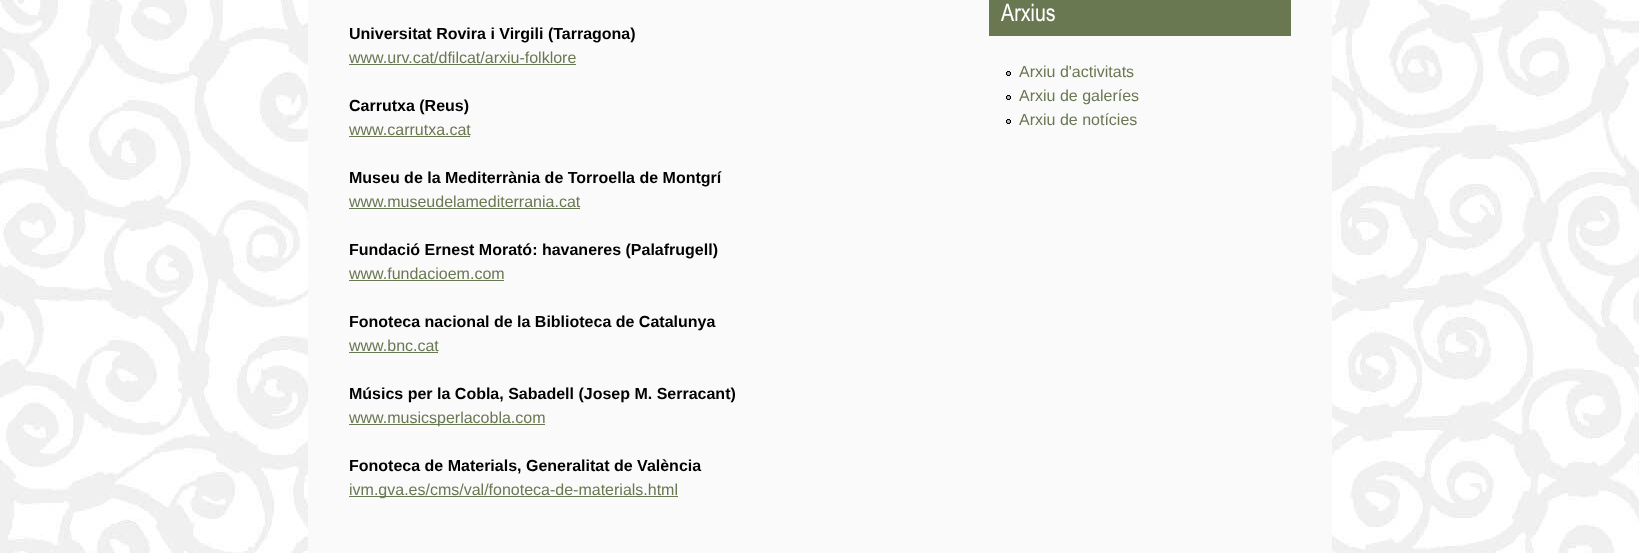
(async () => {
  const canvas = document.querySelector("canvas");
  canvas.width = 1639;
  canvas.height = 553;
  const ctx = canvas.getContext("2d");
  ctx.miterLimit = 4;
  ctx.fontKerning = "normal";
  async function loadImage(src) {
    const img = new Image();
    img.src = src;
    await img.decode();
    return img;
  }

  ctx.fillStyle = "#ffffff";
  ctx.fillRect(0, 0, 1639, 553);
  ctx.drawImage(await loadImage("img/1.png"), 0, 0, 1639, 553);
  for (const [x, y, w, h, color] of [
    [308, 0, 1024, 553, "#fafafa"],
    [349, 64, 227, 1, "#6a7852"],
    [349, 136, 121, 1, "#6a7852"],
    [349, 208, 231, 1, "#6a7852"],
    [349, 280, 155, 1, "#6a7852"],
    [349, 352, 89, 1, "#6a7852"],
    [349, 424, 196, 1, "#6a7852"],
    [349, 496, 329, 1, "#6a7852"],
    [989, 0, 302, 36, "#6a7852"],
  ]) {
    ctx.fillStyle = color;
    ctx.fillRect(x, y, w, h);
  }
  ctx.drawImage(await loadImage("img/2.png"), 1006, 71, 5, 5);
  ctx.drawImage(await loadImage("img/2.png"), 1006, 95, 5, 5);
  ctx.drawImage(await loadImage("img/2.png"), 1006, 119, 5, 5);
  ctx.font = "bold 16px Liberation Sans";
  ctx.fillStyle = "#000000";
  ctx.fillText("Universitat Rovira i Virgili (Tarragona)", 349, 39);
  ctx.font = "16px Liberation Sans";
  ctx.fillStyle = "#6a7852";
  ctx.fillText("www.urv.cat/dfilcat/arxiu-folklore", 349, 63);
  ctx.font = "bold 16px Liberation Sans";
  ctx.fillStyle = "#000000";
  ctx.fillText("Carrutxa (Reus)", 349, 111);
  ctx.font = "16px Liberation Sans";
  ctx.fillStyle = "#6a7852";
  ctx.fillText("www.carrutxa.cat", 349, 135);
  ctx.font = "bold 16px Liberation Sans";
  ctx.fillStyle = "#000000";
  ctx.fillText("Museu de la Mediterrània de Torroella de Montgrí", 349, 183);
  ctx.font = "16px Liberation Sans";
  ctx.fillStyle = "#6a7852";
  ctx.fillText("www.museudelamediterrania.cat", 349, 207);
  ctx.font = "bold 16px Liberation Sans";
  ctx.fillStyle = "#000000";
  ctx.fillText("Fundació Ernest Morató: havaneres (Palafrugell)", 349, 255);
  ctx.font = "16px Liberation Sans";
  ctx.fillStyle = "#6a7852";
  ctx.fillText("www.fundacioem.com", 349, 279);
  ctx.font = "bold 16px Liberation Sans";
  ctx.fillStyle = "#000000";
  ctx.fillText("Fonoteca nacional de la Biblioteca de Catalunya", 349, 327);
  ctx.font = "16px Liberation Sans";
  ctx.fillStyle = "#6a7852";
  ctx.fillText("www.bnc.cat", 349, 351);
  ctx.font = "bold 16px Liberation Sans";
  ctx.fillStyle = "#000000";
  ctx.fillText("Músics per la Cobla, Sabadell (Josep M. Serracant)", 349, 399);
  ctx.font = "16px Liberation Sans";
  ctx.fillStyle = "#6a7852";
  ctx.fillText("www.musicsperlacobla.com", 349, 423);
  ctx.font = "bold 16px Liberation Sans";
  ctx.fillStyle = "#000000";
  ctx.fillText("Fonoteca de Materials, Generalitat de València", 349, 471);
  ctx.font = "16px Liberation Sans";
  ctx.fillStyle = "#6a7852";
  ctx.fillText("ivm.gva.es/cms/val/fonoteca-de-materials.html", 349, 495);
  ctx.font = "24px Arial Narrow";
  ctx.fillStyle = "#ffffff";
  ctx.fillText("Arxius", 1001, 21);
  ctx.font = "16px Liberation Sans";
  ctx.fillStyle = "#6a7852";
  for (const [text, x, y] of [
    ["Arxiu d'activitats", 1019, 77],
    ["Arxiu de galeríes", 1019, 101],
    ["Arxiu de notícies", 1019, 125],
  ]) {
    ctx.fillText(text, x, y);
  }
})();
